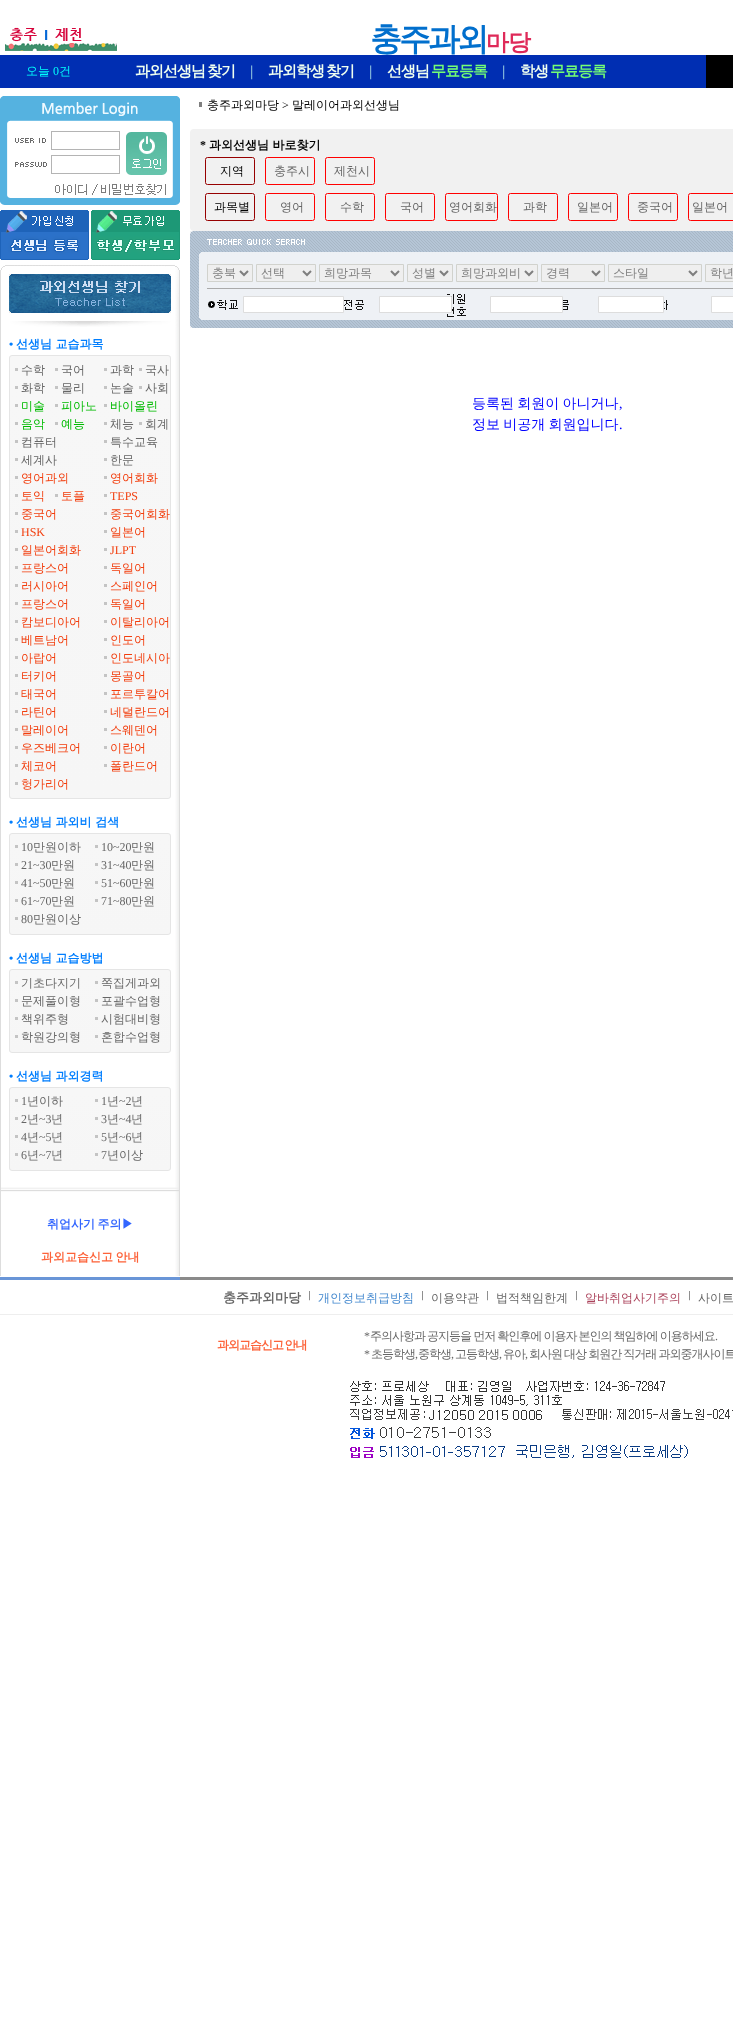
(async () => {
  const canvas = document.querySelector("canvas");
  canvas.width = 733;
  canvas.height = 2020;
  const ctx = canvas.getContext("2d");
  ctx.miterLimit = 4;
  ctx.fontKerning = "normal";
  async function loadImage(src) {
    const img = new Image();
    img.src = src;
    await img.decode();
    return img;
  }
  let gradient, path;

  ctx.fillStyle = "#ffffff";
  ctx.fillRect(0, 0, 733, 2020);
  ctx.drawImage(await loadImage("img/1.png"), 5, 27, 112, 24);
  for (const [x, y, w, h, color] of [
    [0, 55, 706, 33, "#002eb2"],
    [706, 55, 27, 33, "#000000"],
    [199, 102, 3, 5, "#7f7f7f"],
  ]) {
    ctx.fillStyle = color;
    ctx.fillRect(x, y, w, h);
  }
  ctx.fillStyle = "#f1f1f1";
  ctx.beginPath();
  ctx.roundRect(190, 129, 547, 102, 4);
  ctx.fill();
  ctx.beginPath();
  ctx.roundRect(205.5, 157.5, 49, 27, 2);
  ctx.strokeStyle = "#970000";
  ctx.stroke();
  ctx.beginPath();
  ctx.roundRect(265.5, 157.5, 49, 27, 2);
  ctx.strokeStyle = "#ff0000";
  ctx.stroke();
  ctx.beginPath();
  ctx.roundRect(325.5, 157.5, 49, 27, 2);
  ctx.stroke();
  ctx.beginPath();
  ctx.roundRect(205.5, 193.5, 49, 27, 2);
  ctx.strokeStyle = "#970000";
  ctx.stroke();
  ctx.beginPath();
  ctx.roundRect(265.5, 193.5, 49, 27, 2);
  ctx.strokeStyle = "#ff0000";
  ctx.stroke();
  ctx.beginPath();
  ctx.roundRect(325.5, 193.5, 49, 27, 2);
  ctx.stroke();
  ctx.beginPath();
  ctx.roundRect(385.5, 193.5, 49, 27, 2);
  ctx.stroke();
  ctx.beginPath();
  ctx.roundRect(445.5, 193.5, 52, 27, 2);
  ctx.stroke();
  ctx.beginPath();
  ctx.roundRect(508.5, 193.5, 49, 27, 2);
  ctx.stroke();
  ctx.beginPath();
  ctx.roundRect(568.5, 193.5, 49, 27, 2);
  ctx.stroke();
  ctx.beginPath();
  ctx.roundRect(628.5, 193.5, 49, 27, 2);
  ctx.stroke();
  ctx.beginPath();
  ctx.roundRect(688.5, 193.5, 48, 27, 2);
  ctx.stroke();
  ctx.drawImage(await loadImage("img/2.png"), 190, 231, 543, 97);
  ctx.fillStyle = "#efefef";
  ctx.beginPath();
  ctx.rect(207.5, 264.5, 45, 17);
  ctx.fill();
  ctx.strokeStyle = "#d1d2cd";
  ctx.stroke();
  path = new Path2D("M240 271L244 275L248 271");
  ctx.strokeStyle = "#7f7f7f";
  ctx.lineWidth = 2;
  ctx.stroke(path);
  ctx.beginPath();
  ctx.rect(256.5, 264.5, 59, 17);
  ctx.fill();
  ctx.strokeStyle = "#d1d2cd";
  ctx.lineWidth = 1;
  ctx.stroke();
  path = new Path2D("M303 271L307 275L311 271");
  ctx.strokeStyle = "#7f7f7f";
  ctx.lineWidth = 2;
  ctx.stroke(path);
  ctx.beginPath();
  ctx.rect(319.5, 264.5, 84, 17);
  ctx.fill();
  ctx.strokeStyle = "#d1d2cd";
  ctx.lineWidth = 1;
  ctx.stroke();
  path = new Path2D("M391 271L395 275L399 271");
  ctx.strokeStyle = "#7f7f7f";
  ctx.lineWidth = 2;
  ctx.stroke(path);
  ctx.beginPath();
  ctx.rect(407.5, 264.5, 45, 17);
  ctx.fill();
  ctx.strokeStyle = "#d1d2cd";
  ctx.lineWidth = 1;
  ctx.stroke();
  path = new Path2D("M440 271L444 275L448 271");
  ctx.strokeStyle = "#7f7f7f";
  ctx.lineWidth = 2;
  ctx.stroke(path);
  ctx.beginPath();
  ctx.rect(456.5, 264.5, 81, 17);
  ctx.fill();
  ctx.strokeStyle = "#d1d2cd";
  ctx.lineWidth = 1;
  ctx.stroke();
  path = new Path2D("M525 271L529 275L533 271");
  ctx.strokeStyle = "#7f7f7f";
  ctx.lineWidth = 2;
  ctx.stroke(path);
  ctx.beginPath();
  ctx.rect(541.5, 264.5, 63, 17);
  ctx.fill();
  ctx.strokeStyle = "#d1d2cd";
  ctx.lineWidth = 1;
  ctx.stroke();
  path = new Path2D("M592 271L596 275L600 271");
  ctx.strokeStyle = "#7f7f7f";
  ctx.lineWidth = 2;
  ctx.stroke(path);
  ctx.beginPath();
  ctx.rect(608.5, 264.5, 93, 17);
  ctx.fill();
  ctx.strokeStyle = "#d1d2cd";
  ctx.lineWidth = 1;
  ctx.stroke();
  path = new Path2D("M689 271L693 275L697 271");
  ctx.strokeStyle = "#7f7f7f";
  ctx.lineWidth = 2;
  ctx.stroke(path);
  ctx.beginPath();
  ctx.rect(705.5, 264.5, 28, 17);
  ctx.fill();
  ctx.strokeStyle = "#d1d2cd";
  ctx.lineWidth = 1;
  ctx.stroke();
  ctx.fillStyle = "#ffffff";
  ctx.beginPath();
  ctx.rect(243.5, 296.5, 100, 16);
  ctx.fill();
  ctx.strokeStyle = "#dddddd";
  ctx.stroke();
  ctx.beginPath();
  ctx.rect(379.5, 296.5, 72, 16);
  ctx.fill();
  ctx.stroke();
  ctx.beginPath();
  ctx.rect(490.5, 296.5, 72, 16);
  ctx.fill();
  ctx.stroke();
  ctx.beginPath();
  ctx.rect(598.5, 296.5, 65, 16);
  ctx.fill();
  ctx.stroke();
  ctx.beginPath();
  ctx.rect(711.5, 296.5, 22, 16);
  ctx.fill();
  ctx.stroke();
  ctx.drawImage(await loadImage("img/3.png"), 0, 327, 180, 949);
  ctx.drawImage(await loadImage("img/4.png"), 0, 96, 180, 109);
  ctx.drawImage(await loadImage("img/5.png"), 126, 132, 41, 43);
  ctx.drawImage(await loadImage("img/6.png"), 0, 210, 180, 50);
  ctx.drawImage(await loadImage("img/7.png"), 0, 265, 180, 62);
  ctx.save();
  ctx.beginPath();
  ctx.roundRect(9, 355, 162, 444, 3);
  ctx.clip();
  gradient = ctx.createLinearGradient(90, 356, 90, 798);
  gradient.addColorStop(0.05, "#f7f7f7");
  gradient.addColorStop(1, "#f6f6f6");
  ctx.fillStyle = gradient;
  ctx.fillRect(9, 356, 162, 442);
  ctx.restore();
  ctx.beginPath();
  ctx.roundRect(9.5, 355.5, 161, 443, 2.5);
  ctx.strokeStyle = "#e5e5e5";
  ctx.stroke();
  for (const [x, y, w, h, color] of [
    [15, 368, 3, 3, "#c4c4c4"],
    [55, 368, 3, 3, "#c4c4c4"],
    [104, 368, 3, 3, "#c4c4c4"],
    [139, 368, 3, 3, "#c4c4c4"],
    [15, 386, 3, 3, "#c4c4c4"],
    [55, 386, 3, 3, "#c4c4c4"],
    [104, 386, 3, 3, "#c4c4c4"],
    [139, 386, 3, 3, "#c4c4c4"],
    [15, 404, 3, 3, "#c4c4c4"],
    [55, 404, 3, 3, "#c4c4c4"],
    [104, 404, 3, 3, "#c4c4c4"],
    [15, 422, 3, 3, "#c4c4c4"],
    [55, 422, 3, 3, "#c4c4c4"],
    [104, 422, 3, 3, "#c4c4c4"],
    [139, 422, 3, 3, "#c4c4c4"],
    [15, 440, 3, 3, "#c4c4c4"],
    [104, 440, 3, 3, "#c4c4c4"],
    [15, 458, 3, 3, "#c4c4c4"],
    [104, 458, 3, 3, "#c4c4c4"],
    [15, 476, 3, 3, "#c4c4c4"],
    [104, 476, 3, 3, "#c4c4c4"],
    [15, 494, 3, 3, "#c4c4c4"],
    [55, 494, 3, 3, "#c4c4c4"],
    [104, 494, 3, 3, "#c4c4c4"],
    [15, 512, 3, 3, "#c4c4c4"],
    [104, 512, 3, 3, "#c4c4c4"],
    [15, 530, 3, 3, "#c4c4c4"],
    [104, 530, 3, 3, "#c4c4c4"],
    [15, 548, 3, 3, "#c4c4c4"],
    [104, 548, 3, 3, "#c4c4c4"],
    [15, 566, 3, 3, "#c4c4c4"],
    [104, 566, 3, 3, "#c4c4c4"],
    [15, 584, 3, 3, "#c4c4c4"],
    [104, 584, 3, 3, "#c4c4c4"],
    [15, 602, 3, 3, "#c4c4c4"],
    [104, 602, 3, 3, "#c4c4c4"],
    [15, 620, 3, 3, "#c4c4c4"],
    [104, 620, 3, 3, "#c4c4c4"],
    [15, 638, 3, 3, "#c4c4c4"],
    [104, 638, 3, 3, "#c4c4c4"],
    [15, 656, 3, 3, "#c4c4c4"],
    [104, 656, 3, 3, "#c4c4c4"],
    [15, 674, 3, 3, "#c4c4c4"],
    [104, 674, 3, 3, "#c4c4c4"],
    [15, 692, 3, 3, "#c4c4c4"],
    [104, 692, 3, 3, "#c4c4c4"],
    [15, 710, 3, 3, "#c4c4c4"],
    [104, 710, 3, 3, "#c4c4c4"],
    [15, 728, 3, 3, "#c4c4c4"],
    [104, 728, 3, 3, "#c4c4c4"],
    [15, 746, 3, 3, "#c4c4c4"],
    [104, 746, 3, 3, "#c4c4c4"],
    [15, 764, 3, 3, "#c4c4c4"],
    [104, 764, 3, 3, "#c4c4c4"],
    [15, 782, 3, 3, "#c4c4c4"],
  ]) {
    ctx.fillStyle = color;
    ctx.fillRect(x, y, w, h);
  }
  ctx.save();
  ctx.beginPath();
  ctx.roundRect(9, 833, 162, 102, 3);
  ctx.clip();
  gradient = ctx.createLinearGradient(90, 834, 90, 934);
  gradient.addColorStop(0.05, "#f7f7f7");
  gradient.addColorStop(1, "#f6f6f6");
  ctx.fillStyle = gradient;
  ctx.fillRect(9, 834, 162, 100);
  ctx.restore();
  ctx.beginPath();
  ctx.roundRect(9.5, 833.5, 161, 101, 2.5);
  ctx.stroke();
  for (const [x, y, w, h, color] of [
    [15, 845, 3, 3, "#c4c4c4"],
    [95, 845, 3, 3, "#c4c4c4"],
    [15, 863, 3, 3, "#c4c4c4"],
    [95, 863, 3, 3, "#c4c4c4"],
    [15, 881, 3, 3, "#c4c4c4"],
    [95, 881, 3, 3, "#c4c4c4"],
    [15, 899, 3, 3, "#c4c4c4"],
    [95, 899, 3, 3, "#c4c4c4"],
    [15, 917, 3, 3, "#c4c4c4"],
  ]) {
    ctx.fillStyle = color;
    ctx.fillRect(x, y, w, h);
  }
  ctx.save();
  ctx.beginPath();
  ctx.roundRect(9, 969, 162, 84, 3);
  ctx.clip();
  gradient = ctx.createLinearGradient(90, 970, 90, 1052);
  gradient.addColorStop(0.05, "#f7f7f7");
  gradient.addColorStop(1, "#f6f6f6");
  ctx.fillStyle = gradient;
  ctx.fillRect(9, 970, 162, 82);
  ctx.restore();
  ctx.beginPath();
  ctx.roundRect(9.5, 969.5, 161, 83, 2.5);
  ctx.stroke();
  for (const [x, y, w, h, color] of [
    [15, 981, 3, 3, "#c4c4c4"],
    [95, 981, 3, 3, "#c4c4c4"],
    [15, 999, 3, 3, "#c4c4c4"],
    [95, 999, 3, 3, "#c4c4c4"],
    [15, 1017, 3, 3, "#c4c4c4"],
    [95, 1017, 3, 3, "#c4c4c4"],
    [15, 1035, 3, 3, "#c4c4c4"],
    [95, 1035, 3, 3, "#c4c4c4"],
  ]) {
    ctx.fillStyle = color;
    ctx.fillRect(x, y, w, h);
  }
  ctx.save();
  ctx.beginPath();
  ctx.roundRect(9, 1087, 162, 84, 3);
  ctx.clip();
  gradient = ctx.createLinearGradient(90, 1088, 90, 1170);
  gradient.addColorStop(0.05, "#f7f7f7");
  gradient.addColorStop(1, "#f6f6f6");
  ctx.fillStyle = gradient;
  ctx.fillRect(9, 1088, 162, 82);
  ctx.restore();
  ctx.beginPath();
  ctx.roundRect(9.5, 1087.5, 161, 83, 2.5);
  ctx.stroke();
  for (const [x, y, w, h, color] of [
    [15, 1099, 3, 3, "#c4c4c4"],
    [95, 1099, 3, 3, "#c4c4c4"],
    [15, 1117, 3, 3, "#c4c4c4"],
    [95, 1117, 3, 3, "#c4c4c4"],
    [15, 1135, 3, 3, "#c4c4c4"],
    [95, 1135, 3, 3, "#c4c4c4"],
    [15, 1153, 3, 3, "#c4c4c4"],
    [95, 1153, 3, 3, "#c4c4c4"],
  ]) {
    ctx.fillStyle = color;
    ctx.fillRect(x, y, w, h);
  }
  ctx.drawImage(await loadImage("img/8.png"), 1, 1187, 178, 5);
  ctx.fillStyle = "#6995d7";
  ctx.fillRect(0, 1277, 180, 3);
  ctx.fillStyle = "#8a8a8a";
  ctx.fillRect(180, 1277, 553, 3);
  ctx.drawImage(await loadImage("img/9.png"), 309, 1291, 1, 10);
  ctx.drawImage(await loadImage("img/9.png"), 422, 1291, 1, 10);
  ctx.drawImage(await loadImage("img/9.png"), 487, 1291, 1, 10);
  ctx.drawImage(await loadImage("img/9.png"), 576, 1291, 1, 10);
  ctx.drawImage(await loadImage("img/9.png"), 689, 1291, 1, 10);
  ctx.fillStyle = "#eeeeee";
  ctx.fillRect(0, 1314, 733, 1);
  ctx.drawImage(await loadImage("img/10.png"), 350, 1381, 383, 77);
  ctx.letterSpacing = "-3px";
  ctx.font = "bold 32px WenQuanYi Zen Hei";
  ctx.fillStyle = "#016fcd";
  ctx.fillText("충주과외", 370, 50);
  ctx.letterSpacing = "-1px";
  ctx.font = "bold 23px WenQuanYi Zen Hei";
  ctx.fillStyle = "#df2a59";
  ctx.fillText("마당", 486, 50);
  ctx.letterSpacing = "0px";
  ctx.font = "500 12px WenQuanYi Zen Hei";
  ctx.fillStyle = "#00fffc";
  ctx.fillText("오늘", 26, 75);
  ctx.font = "12px Liberation Serif";
  ctx.fillText("0", 53, 75);
  ctx.font = "500 12px WenQuanYi Zen Hei";
  ctx.fillText("건", 59, 75);
  ctx.letterSpacing = "-1px";
  ctx.font = "bold 15px WenQuanYi Zen Hei";
  ctx.fillStyle = "#efffef";
  ctx.fillText("과외선생님", 135, 76);
  ctx.fillText("찾기", 207, 76);
  ctx.letterSpacing = "0px";
  ctx.font = "bold 15px Liberation Serif";
  ctx.fillStyle = "#8dc1de";
  ctx.fillText("|", 250, 76);
  ctx.letterSpacing = "-1px";
  ctx.font = "bold 15px WenQuanYi Zen Hei";
  ctx.fillStyle = "#efffef";
  ctx.fillText("과외학생", 268, 76);
  ctx.fillText("찾기", 326, 76);
  ctx.letterSpacing = "0px";
  ctx.font = "bold 15px Liberation Serif";
  ctx.fillStyle = "#8dc1de";
  ctx.fillText("|", 369, 76);
  ctx.letterSpacing = "-1px";
  ctx.font = "bold 15px WenQuanYi Zen Hei";
  ctx.fillStyle = "#efffef";
  ctx.fillText("선생님", 387, 76);
  ctx.fillStyle = "#74ff74";
  ctx.fillText("무료등록", 431, 76);
  ctx.letterSpacing = "0px";
  ctx.font = "bold 15px Liberation Serif";
  ctx.fillStyle = "#8dc1de";
  ctx.fillText("|", 502, 76);
  ctx.letterSpacing = "-1px";
  ctx.font = "bold 15px WenQuanYi Zen Hei";
  ctx.fillStyle = "#efffef";
  ctx.fillText("학생", 520, 76);
  ctx.fillStyle = "#74ff74";
  ctx.fillText("무료등록", 550, 76);
  ctx.letterSpacing = "0px";
  ctx.font = "500 12px WenQuanYi Zen Hei";
  ctx.fillStyle = "#000000";
  ctx.fillText("충주과외마당", 207, 109);
  ctx.font = "12px Liberation Serif";
  ctx.fillText(">", 282, 109);
  ctx.font = "500 12px WenQuanYi Zen Hei";
  ctx.fillText("말레이어과외선생님", 292, 109);
  ctx.font = "bold 12px Liberation Serif";
  ctx.fillText("*", 200, 149);
  ctx.font = "bold 12px WenQuanYi Zen Hei";
  ctx.fillText("과외선생님 바로찾기", 209, 149);
  ctx.font = "500 12px WenQuanYi Zen Hei";
  ctx.fillText("지역", 220, 175);
  ctx.fillStyle = "#666666";
  ctx.fillText("충주시", 274, 175);
  ctx.fillText("제천시", 334, 175);
  ctx.fillStyle = "#000000";
  ctx.fillText("과목별", 214, 211);
  ctx.fillStyle = "#666666";
  for (const [text, x, y] of [
    ["영어", 280, 211],
    ["수학", 340, 211],
    ["국어", 400, 211],
    ["영어회화", 449, 211],
    ["과학", 523, 211],
    ["일본어", 577, 211],
    ["중국어", 637, 211],
    ["일본어", 692, 211],
  ]) {
    ctx.fillText(text, x, y);
  }
  ctx.fillStyle = "#7f7f7f";
  for (const [text, x, y] of [
    ["충북", 212, 277],
    ["선택", 261, 277],
    ["희망과목", 324, 277],
    ["성별", 412, 277],
    ["희망과외비", 461, 277],
    ["경력", 546, 277],
    ["스타일", 613, 277],
    ["학년", 710, 277],
  ]) {
    ctx.fillText(text, x, y);
  }
  ctx.wordSpacing = "-1px";
  ctx.font = "500 14px WenQuanYi Zen Hei";
  ctx.fillStyle = "#0000ff";
  ctx.fillText("등록된 회원이 아니거나", 472, 408);
  ctx.wordSpacing = "0px";
  ctx.font = "14px Liberation Serif";
  ctx.fillText(",", 619, 408);
  ctx.wordSpacing = "-1px";
  ctx.font = "500 14px WenQuanYi Zen Hei";
  ctx.fillText("정보 비공개 회원입니다", 472, 429);
  ctx.wordSpacing = "0px";
  ctx.font = "14px Liberation Serif";
  ctx.fillText(".", 619, 429);
  ctx.font = "bold 12px Liberation Serif";
  ctx.fillStyle = "#017efe";
  ctx.fillText("•", 9, 348);
  ctx.font = "bold 12px WenQuanYi Zen Hei";
  ctx.fillText("선생님 교습과목", 16, 348);
  ctx.font = "500 12px WenQuanYi Zen Hei";
  ctx.fillStyle = "#666666";
  for (const [text, x, y] of [
    ["수학", 21, 374],
    ["국어", 61, 374],
    ["과학", 110, 374],
    ["국사", 145, 374],
    ["화학", 21, 392],
    ["물리", 61, 392],
    ["논술", 110, 392],
    ["사회", 145, 392],
  ]) {
    ctx.fillText(text, x, y);
  }
  ctx.fillStyle = "#00bb00";
  for (const [text, x, y] of [
    ["미술", 21, 410],
    ["피아노", 61, 410],
    ["바이올린", 110, 410],
    ["음악", 21, 428],
    ["예능", 61, 428],
  ]) {
    ctx.fillText(text, x, y);
  }
  ctx.fillStyle = "#666666";
  for (const [text, x, y] of [
    ["체능", 110, 428],
    ["회계", 145, 428],
    ["컴퓨터", 21, 446],
    ["특수교육", 110, 446],
    ["세계사", 21, 464],
    ["한문", 110, 464],
  ]) {
    ctx.fillText(text, x, y);
  }
  ctx.fillStyle = "#f23d0c";
  for (const [text, x, y] of [
    ["영어과외", 21, 482],
    ["영어회화", 110, 482],
    ["토익", 21, 500],
    ["토플", 61, 500],
  ]) {
    ctx.fillText(text, x, y);
  }
  ctx.font = "12px Liberation Serif";
  ctx.fillText("TEPS", 110, 500);
  ctx.font = "500 12px WenQuanYi Zen Hei";
  ctx.fillText("중국어", 21, 518);
  ctx.fillText("중국어회화", 110, 518);
  ctx.font = "12px Liberation Serif";
  ctx.fillText("HSK", 21, 536);
  ctx.font = "500 12px WenQuanYi Zen Hei";
  ctx.fillText("일본어", 110, 536);
  ctx.fillText("일본어회화", 21, 554);
  ctx.font = "12px Liberation Serif";
  ctx.fillText("JLPT", 110, 554);
  ctx.font = "500 12px WenQuanYi Zen Hei";
  for (const [text, x, y] of [
    ["프랑스어", 21, 572],
    ["독일어", 110, 572],
    ["러시아어", 21, 590],
    ["스페인어", 110, 590],
    ["프랑스어", 21, 608],
    ["독일어", 110, 608],
    ["캄보디아어", 21, 626],
    ["이탈리아어", 110, 626],
    ["베트남어", 21, 644],
    ["인도어", 110, 644],
    ["아랍어", 21, 662],
    ["인도네시아", 110, 662],
    ["터키어", 21, 680],
    ["몽골어", 110, 680],
    ["태국어", 21, 698],
    ["포르투칼어", 110, 698],
    ["라틴어", 21, 716],
    ["네덜란드어", 110, 716],
    ["말레이어", 21, 734],
    ["스웨덴어", 110, 734],
    ["우즈베크어", 21, 752],
    ["이란어", 110, 752],
    ["체코어", 21, 770],
    ["폴란드어", 110, 770],
    ["헝가리어", 21, 788],
  ]) {
    ctx.fillText(text, x, y);
  }
  ctx.font = "bold 12px Liberation Serif";
  ctx.fillStyle = "#017efe";
  ctx.fillText("•", 9, 826);
  ctx.font = "bold 12px WenQuanYi Zen Hei";
  ctx.fillText("선생님 과외비 검색", 16, 826);
  ctx.font = "12px Liberation Serif";
  ctx.fillStyle = "#666666";
  ctx.fillText("10", 21, 851);
  ctx.font = "500 12px WenQuanYi Zen Hei";
  ctx.fillText("만원이하", 33, 851);
  ctx.font = "12px Liberation Serif";
  ctx.fillText("10~20", 101, 851);
  ctx.font = "500 12px WenQuanYi Zen Hei";
  ctx.fillText("만원", 131, 851);
  ctx.font = "12px Liberation Serif";
  ctx.fillText("21~30", 21, 869);
  ctx.font = "500 12px WenQuanYi Zen Hei";
  ctx.fillText("만원", 51, 869);
  ctx.font = "12px Liberation Serif";
  ctx.fillText("31~40", 101, 869);
  ctx.font = "500 12px WenQuanYi Zen Hei";
  ctx.fillText("만원", 131, 869);
  ctx.font = "12px Liberation Serif";
  ctx.fillText("41~50", 21, 887);
  ctx.font = "500 12px WenQuanYi Zen Hei";
  ctx.fillText("만원", 51, 887);
  ctx.font = "12px Liberation Serif";
  ctx.fillText("51~60", 101, 887);
  ctx.font = "500 12px WenQuanYi Zen Hei";
  ctx.fillText("만원", 131, 887);
  ctx.font = "12px Liberation Serif";
  ctx.fillText("61~70", 21, 905);
  ctx.font = "500 12px WenQuanYi Zen Hei";
  ctx.fillText("만원", 51, 905);
  ctx.font = "12px Liberation Serif";
  ctx.fillText("71~80", 101, 905);
  ctx.font = "500 12px WenQuanYi Zen Hei";
  ctx.fillText("만원", 131, 905);
  ctx.font = "12px Liberation Serif";
  ctx.fillText("80", 21, 923);
  ctx.font = "500 12px WenQuanYi Zen Hei";
  ctx.fillText("만원이상", 33, 923);
  ctx.font = "bold 12px Liberation Serif";
  ctx.fillStyle = "#017efe";
  ctx.fillText("•", 9, 962);
  ctx.font = "bold 12px WenQuanYi Zen Hei";
  ctx.fillText("선생님 교습방법", 16, 962);
  ctx.font = "500 12px WenQuanYi Zen Hei";
  ctx.fillStyle = "#666666";
  for (const [text, x, y] of [
    ["기초다지기", 21, 987],
    ["쪽집게과외", 101, 987],
    ["문제풀이형", 21, 1005],
    ["포괄수업형", 101, 1005],
    ["책위주형", 21, 1023],
    ["시험대비형", 101, 1023],
    ["학원강의형", 21, 1041],
    ["혼합수업형", 101, 1041],
  ]) {
    ctx.fillText(text, x, y);
  }
  ctx.font = "bold 12px Liberation Serif";
  ctx.fillStyle = "#017efe";
  ctx.fillText("•", 9, 1080);
  ctx.font = "bold 12px WenQuanYi Zen Hei";
  ctx.fillText("선생님 과외경력", 16, 1080);
  ctx.font = "12px Liberation Serif";
  ctx.fillStyle = "#666666";
  ctx.fillText("1", 21, 1105);
  ctx.font = "500 12px WenQuanYi Zen Hei";
  ctx.fillText("년이하", 27, 1105);
  ctx.font = "12px Liberation Serif";
  ctx.fillText("1", 101, 1105);
  ctx.font = "500 12px WenQuanYi Zen Hei";
  ctx.fillText("년", 107, 1105);
  ctx.font = "12px Liberation Serif";
  ctx.fillText("~2", 119, 1105);
  ctx.font = "500 12px WenQuanYi Zen Hei";
  ctx.fillText("년", 131, 1105);
  ctx.font = "12px Liberation Serif";
  ctx.fillText("2", 21, 1123);
  ctx.font = "500 12px WenQuanYi Zen Hei";
  ctx.fillText("년", 27, 1123);
  ctx.font = "12px Liberation Serif";
  ctx.fillText("~3", 39, 1123);
  ctx.font = "500 12px WenQuanYi Zen Hei";
  ctx.fillText("년", 51, 1123);
  ctx.font = "12px Liberation Serif";
  ctx.fillText("3", 101, 1123);
  ctx.font = "500 12px WenQuanYi Zen Hei";
  ctx.fillText("년", 107, 1123);
  ctx.font = "12px Liberation Serif";
  ctx.fillText("~4", 119, 1123);
  ctx.font = "500 12px WenQuanYi Zen Hei";
  ctx.fillText("년", 131, 1123);
  ctx.font = "12px Liberation Serif";
  ctx.fillText("4", 21, 1141);
  ctx.font = "500 12px WenQuanYi Zen Hei";
  ctx.fillText("년", 27, 1141);
  ctx.font = "12px Liberation Serif";
  ctx.fillText("~5", 39, 1141);
  ctx.font = "500 12px WenQuanYi Zen Hei";
  ctx.fillText("년", 51, 1141);
  ctx.font = "12px Liberation Serif";
  ctx.fillText("5", 101, 1141);
  ctx.font = "500 12px WenQuanYi Zen Hei";
  ctx.fillText("년", 107, 1141);
  ctx.font = "12px Liberation Serif";
  ctx.fillText("~6", 119, 1141);
  ctx.font = "500 12px WenQuanYi Zen Hei";
  ctx.fillText("년", 131, 1141);
  ctx.font = "12px Liberation Serif";
  ctx.fillText("6", 21, 1159);
  ctx.font = "500 12px WenQuanYi Zen Hei";
  ctx.fillText("년", 27, 1159);
  ctx.font = "12px Liberation Serif";
  ctx.fillText("~7", 39, 1159);
  ctx.font = "500 12px WenQuanYi Zen Hei";
  ctx.fillText("년", 51, 1159);
  ctx.font = "12px Liberation Serif";
  ctx.fillText("7", 101, 1159);
  ctx.font = "500 12px WenQuanYi Zen Hei";
  ctx.fillText("년이상", 107, 1159);
  ctx.wordSpacing = "-1px";
  ctx.font = "bold 12px WenQuanYi Zen Hei";
  ctx.fillStyle = "#3366ff";
  ctx.fillText("취업사기 주의▶", 47, 1228);
  ctx.fillStyle = "#fd633a";
  ctx.fillText("과외교습신고 안내", 41, 1261);
  ctx.wordSpacing = "0px";
  ctx.font = "bold 13px WenQuanYi Zen Hei";
  ctx.fillStyle = "#666666";
  ctx.fillText("충주과외마당", 223, 1302);
  ctx.font = "500 12px WenQuanYi Zen Hei";
  ctx.fillStyle = "#4489cf";
  ctx.fillText("개인정보취급방침", 318, 1302);
  ctx.fillStyle = "#666666";
  ctx.fillText("이용약관", 431, 1302);
  ctx.fillText("법적책임한계", 496, 1302);
  ctx.fillStyle = "#ab425b";
  ctx.fillText("알바취업사기주의", 585, 1302);
  ctx.fillStyle = "#666666";
  ctx.fillText("사이트", 698, 1302);
  ctx.letterSpacing = "-1px";
  ctx.wordSpacing = "-1px";
  ctx.font = "bold 12px WenQuanYi Zen Hei";
  ctx.fillStyle = "#fd633a";
  ctx.fillText("과외교습신고 안내", 217, 1349);
  ctx.wordSpacing = "0px";
  ctx.font = "12px Liberation Serif";
  ctx.fillStyle = "#666666";
  ctx.fillText("*", 364, 1340);
  ctx.wordSpacing = "-0.5px";
  ctx.font = "500 12px WenQuanYi Zen Hei";
  ctx.fillText("주의사항과 공지등을 먼저 확인후에 이용자 본인의 책임하에 이용하세요", 370, 1340);
  ctx.wordSpacing = "0px";
  ctx.font = "12px Liberation Serif";
  ctx.fillText(".", 715, 1340);
  ctx.fillText("*", 364, 1358);
  ctx.font = "500 12px WenQuanYi Zen Hei";
  for (const [text, x, y] of [
    ["초등학생", 371, 1358],
    ["중학생", 418, 1358],
    ["고등학생", 455, 1358],
    ["유아", 503, 1358],
  ]) {
    ctx.fillText(text, x, y);
  }
  ctx.wordSpacing = "-0.5px";
  ctx.fillText("회사원 대상 회원간 직거래 과외중개사이트", 529, 1358);
  ctx.wordSpacing = "0px";
  ctx.font = "12px Liberation Serif";
  for (const [text, x, y] of [
    [",", 415, 1358],
    [",", 451, 1358],
    [",", 499, 1358],
    [",", 525, 1358],
  ]) {
    ctx.fillText(text, x, y);
  }
})();
